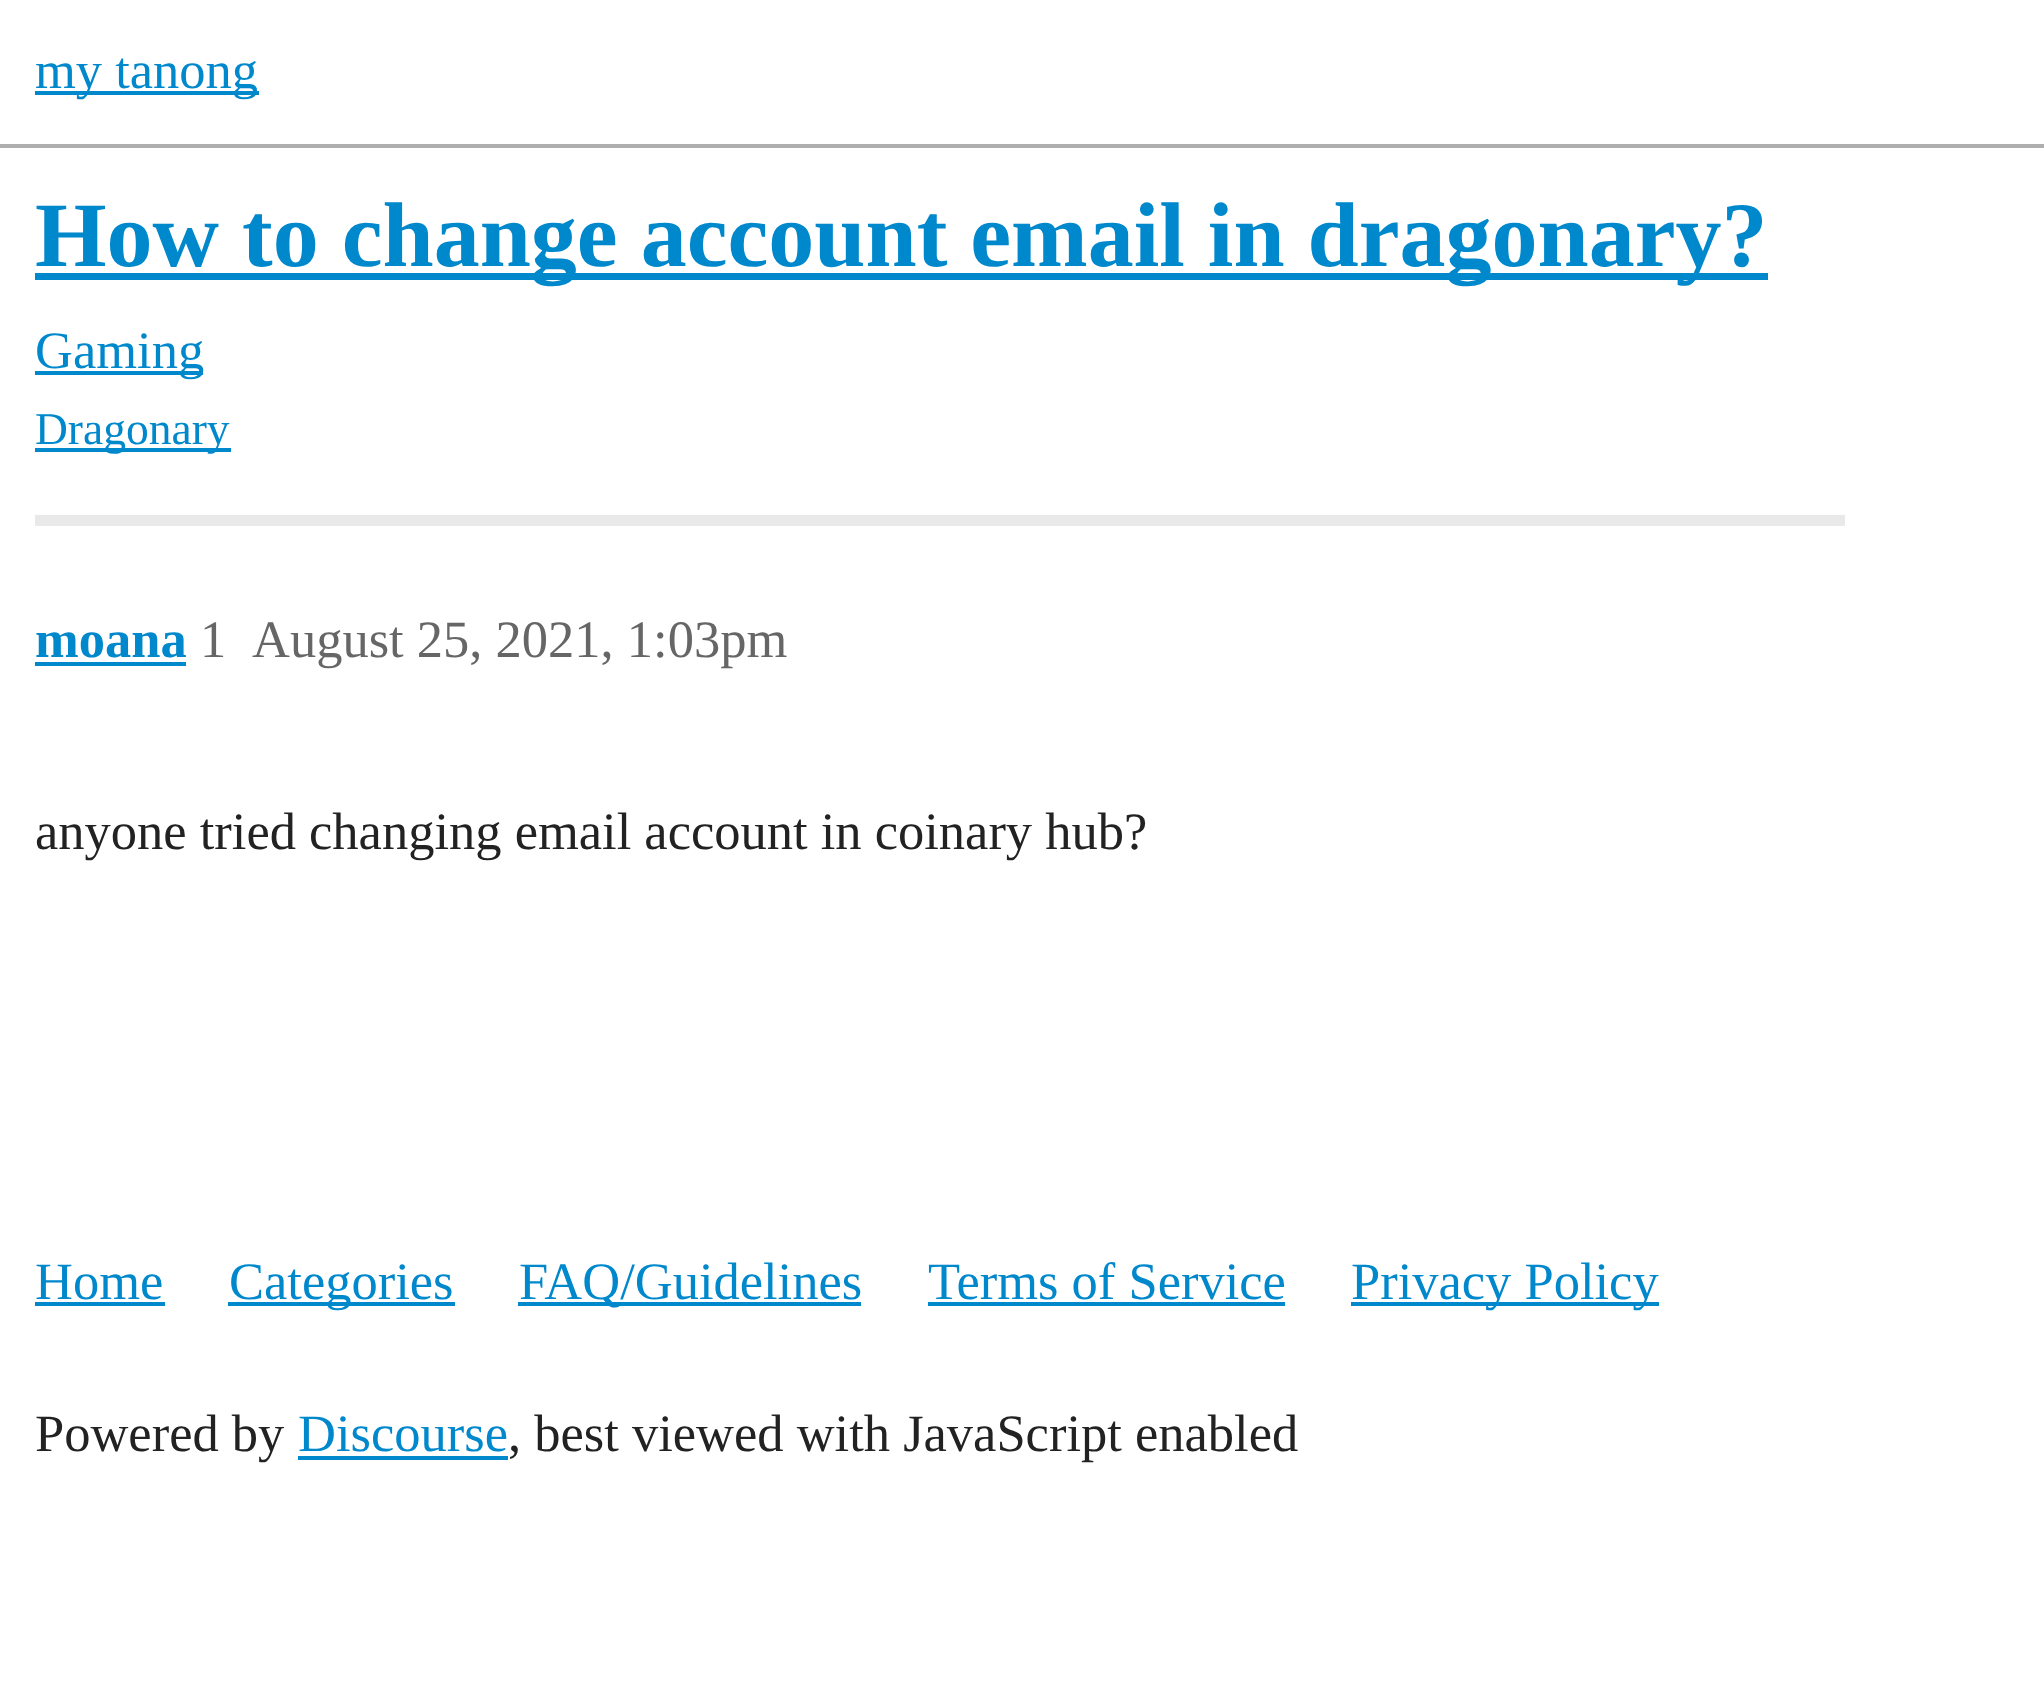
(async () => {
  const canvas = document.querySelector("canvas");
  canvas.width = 2044;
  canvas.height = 1698;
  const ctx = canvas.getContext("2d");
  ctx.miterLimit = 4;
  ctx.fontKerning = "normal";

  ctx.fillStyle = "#ffffff";
  ctx.fillRect(0, 0, 2044, 1698);
  for (const [x, y, w, h, color] of [
    [0, 144, 2044, 4, "#afafaf"],
    [35, 91, 224, 4, "#0088cc"],
    [35, 273, 1733, 7, "#0088cc"],
    [35, 371, 168, 4, "#0088cc"],
    [35, 448, 196, 4, "#0088cc"],
    [35, 515, 1810, 11, "#e9e9e9"],
    [35, 662, 151, 4, "#0088cc"],
    [35, 1302, 130, 4, "#0088cc"],
    [228, 1302, 227, 4, "#0088cc"],
    [518, 1302, 343, 4, "#0088cc"],
    [928, 1302, 357, 4, "#0088cc"],
    [1351, 1302, 308, 4, "#0088cc"],
    [298, 1456, 210, 4, "#0088cc"],
  ]) {
    ctx.fillStyle = color;
    ctx.fillRect(x, y, w, h);
  }
  ctx.font = "52.5px Liberation Serif";
  ctx.fillText("my tanong", 35, 88);
  ctx.font = "bold 92px Liberation Serif";
  ctx.fillText("How to change account email in dragonary?", 35, 266);
  ctx.font = "52.5px Liberation Serif";
  ctx.fillText("Gaming", 35, 368);
  ctx.font = "45.5px Liberation Serif";
  ctx.fillText("Dragonary", 35, 444);
  ctx.font = "bold 52.5px Liberation Serif";
  ctx.fillText("moana", 35, 657);
  ctx.font = "52.5px Liberation Serif";
  ctx.fillStyle = "#666666";
  ctx.fillText("1", 200, 657);
  ctx.fillText("August 25, 2021, 1:03pm", 252, 657);
  ctx.fillStyle = "#222222";
  ctx.fillText("anyone tried changing email account in coinary hub?", 35, 849);
  ctx.fillStyle = "#0088cc";
  for (const [text, x, y] of [
    ["Home", 35, 1299],
    ["Categories", 229, 1299],
    ["FAQ/Guidelines", 519, 1299],
    ["Terms of Service", 928, 1299],
    ["Privacy Policy", 1351, 1299],
  ]) {
    ctx.fillText(text, x, y);
  }
  ctx.fillStyle = "#222222";
  ctx.fillText("Powered by", 35, 1451);
  ctx.fillStyle = "#0088cc";
  ctx.fillText("Discourse", 298, 1451);
  ctx.fillStyle = "#222222";
  ctx.fillText(", best viewed with JavaScript enabled", 508, 1451);
})();
